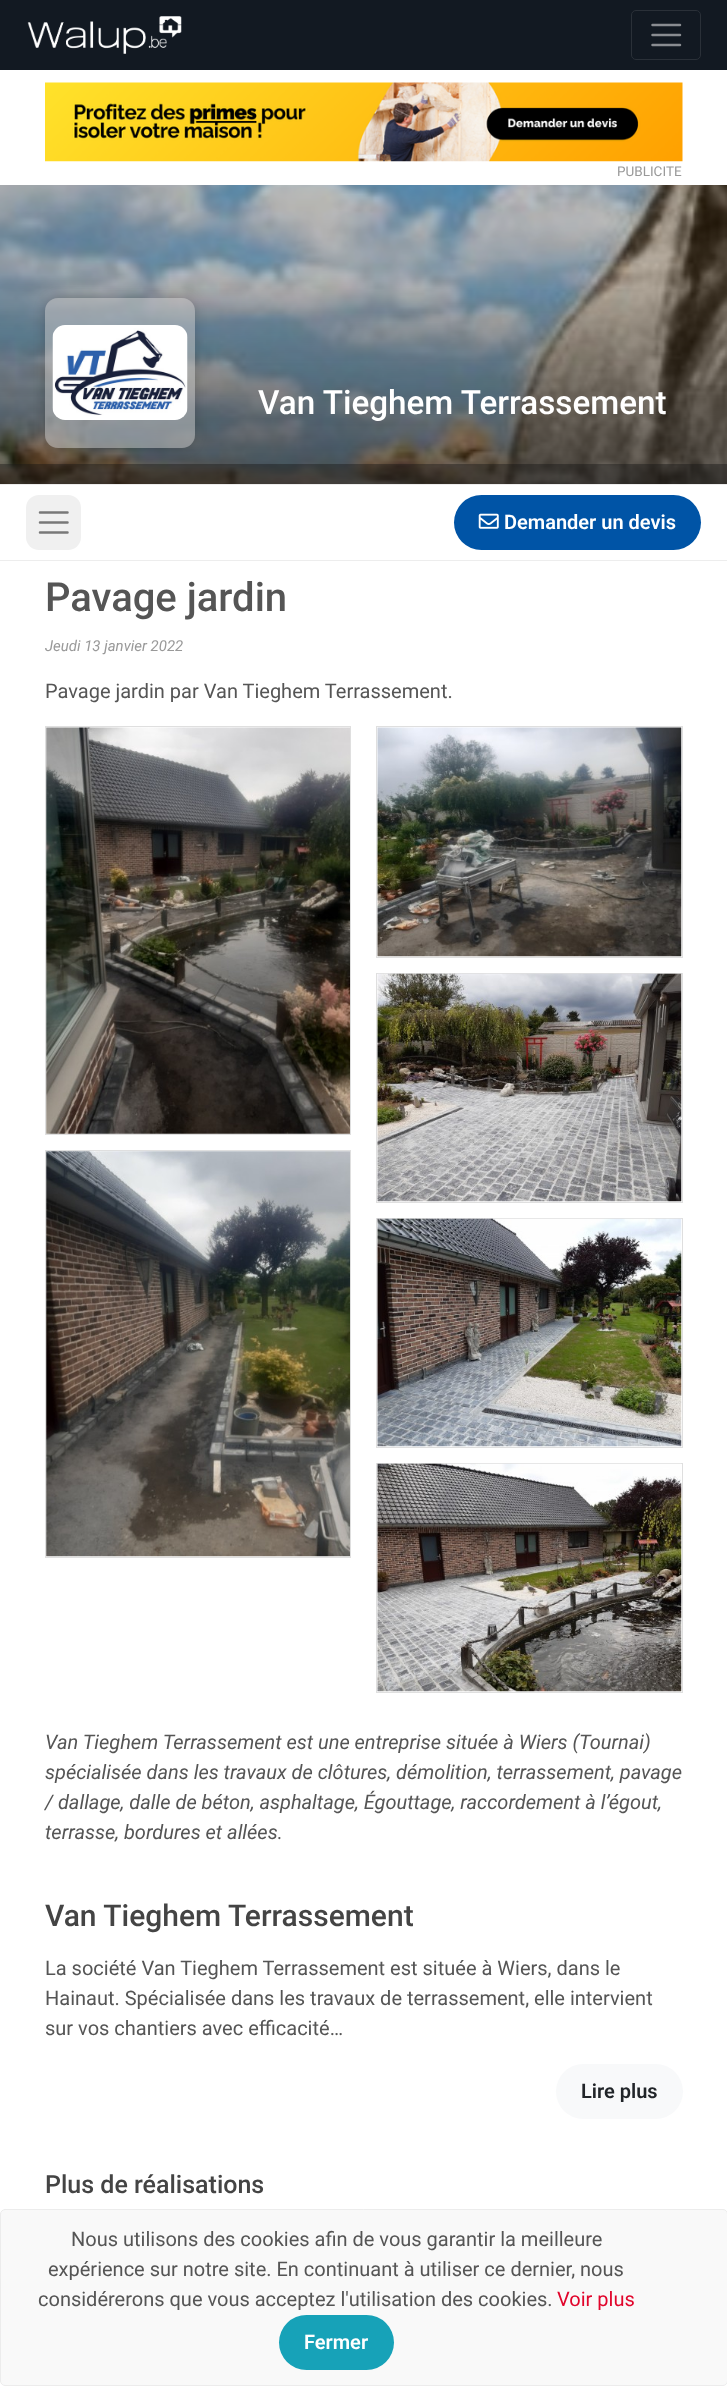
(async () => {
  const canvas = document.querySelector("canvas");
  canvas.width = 727;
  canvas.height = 2386;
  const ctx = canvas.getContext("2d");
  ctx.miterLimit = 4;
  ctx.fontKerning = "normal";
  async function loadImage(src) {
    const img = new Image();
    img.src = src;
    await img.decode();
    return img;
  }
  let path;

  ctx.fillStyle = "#ffffff";
  ctx.fillRect(0, 0, 727, 2386);
  ctx.fillStyle = "#121922";
  ctx.fillRect(0, 0, 727, 70);
  ctx.drawImage(await loadImage("img/1.png"), 27, 16, 155, 38);
  ctx.beginPath();
  ctx.roundRect(631.5, 10.5, 69, 49, 4.5);
  ctx.strokeStyle = "#2a3038";
  ctx.stroke();
  path = new Path2D("M652.5 25H680M652.5 35H680M652.5 45H680");
  ctx.strokeStyle = "#898c91";
  ctx.lineWidth = 2.5;
  ctx.lineCap = "round";
  ctx.stroke(path);
  ctx.drawImage(await loadImage("img/2.png"), 45, 82, 638, 80);
  ctx.drawImage(await loadImage("img/3.png"), 0, 185, 727, 299);
  ctx.fillStyle = "rgba(20, 20, 20, 0.4)";
  ctx.fillRect(0, 464, 727, 20);
  ctx.save();
  path = new Path2D("M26 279H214V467H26ZM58 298H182C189 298 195 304 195 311V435C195 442 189 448 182 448H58C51 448 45 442 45 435V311C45 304 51 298 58 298Z");
  ctx.clip(path, "evenodd");
  ctx.fillStyle = "rgba(0, 0, 0, 0.2)";
  ctx.filter = "blur(6px)";
  ctx.beginPath();
  ctx.roundRect(45, 298, 150, 150, 13);
  ctx.fill();
  ctx.filter = "none";
  ctx.restore();
  ctx.fillStyle = "rgba(200, 200, 200, 0.5)";
  ctx.beginPath();
  ctx.roundRect(45, 298, 150, 150, 13);
  ctx.fill();
  ctx.drawImage(await loadImage("img/4.png"), 52, 325, 136, 95);
  ctx.fillStyle = "#ececec";
  ctx.fillRect(0, 484, 727, 1);
  ctx.fillStyle = "#ededed";
  ctx.fillRect(0, 560, 727, 1);
  ctx.fillStyle = "#f0f0f0";
  ctx.beginPath();
  ctx.roundRect(26, 495, 55, 55, 13);
  ctx.fill();
  path = new Path2D("M40 512.5H67.5M40 522.5H67.5M40 532.5H67.5");
  ctx.strokeStyle = "#787878";
  ctx.stroke(path);
  ctx.fillStyle = "#0054a6";
  ctx.beginPath();
  ctx.roundRect(454, 495, 247, 55, 27.5);
  ctx.fill();
  ctx.drawImage(await loadImage("img/5.png"), 478, 513, 21, 16);
  ctx.strokeStyle = "#dfdfdf";
  ctx.lineWidth = 1;
  ctx.strokeRect(45.5, 726.5, 305, 408);
  ctx.drawImage(await loadImage("img/6.png"), 46, 727, 304, 407);
  ctx.strokeRect(376.5, 726.5, 306, 231);
  ctx.drawImage(await loadImage("img/7.png"), 377, 727, 305, 230);
  ctx.strokeRect(376.5, 973.5, 306, 229);
  ctx.drawImage(await loadImage("img/8.png"), 377, 973, 305, 229);
  ctx.strokeRect(45.5, 1150.5, 305, 407);
  ctx.drawImage(await loadImage("img/9.png"), 46, 1151, 304, 406);
  ctx.strokeRect(376.5, 1218.5, 306, 229);
  ctx.drawImage(await loadImage("img/10.png"), 377, 1218, 305, 229);
  ctx.strokeRect(376.5, 1463.5, 306, 229);
  ctx.drawImage(await loadImage("img/11.png"), 377, 1463, 305, 229);
  ctx.fillStyle = "#f8f9fa";
  ctx.beginPath();
  ctx.roundRect(556, 2064, 127, 55, 27.5);
  ctx.fill();
  ctx.fillStyle = "#f9f9f9";
  ctx.beginPath();
  ctx.roundRect(0.5, 2209.5, 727, 176, 4.5);
  ctx.fill();
  ctx.strokeStyle = "#ececec";
  ctx.stroke();
  ctx.fillStyle = "#17a2b8";
  ctx.beginPath();
  ctx.roundRect(279, 2315, 115, 55, 27.5);
  ctx.fill();
  ctx.font = "13.5px Roboto";
  ctx.fillStyle = "#999999";
  ctx.fillText("PUBLICITE", 617, 176);
  ctx.font = "500 33.25px Roboto";
  ctx.fillStyle = "#ffffff";
  ctx.fillText("Van Tieghem Terrassement", 258, 414);
  ctx.font = "600 20px Roboto";
  ctx.fillText("Demander un devis", 504, 529);
  ctx.font = "500 40px Roboto";
  ctx.fillStyle = "#555555";
  ctx.fillText("Pavage jardin", 45, 611);
  ctx.font = "italic 15px Roboto";
  ctx.fillStyle = "#999999";
  ctx.fillText("Jeudi 13 janvier 2022", 45, 651);
  ctx.font = "20px Roboto";
  ctx.fillStyle = "#555555";
  ctx.fillText("Pavage jardin par Van Tieghem Terrassement.", 45, 698);
  ctx.font = "italic 20px Roboto";
  for (const [text, x, y] of [
    ["Van Tieghem Terrassement est une entreprise située à Wiers (Tournai)", 45, 1749],
    ["spécialisée dans les travaux de clôtures, démolition, terrassement, pavage", 45, 1779],
    ["/ dallage, dalle de béton, asphaltage, Égouttage, raccordement à l’égout,", 45, 1809],
    ["terrasse, bordures et allées.", 45, 1839],
  ]) {
    ctx.fillText(text, x, y);
  }
  ctx.font = "500 30px Roboto";
  ctx.fillStyle = "#444444";
  ctx.fillText("Van Tieghem Terrassement", 45, 1926);
  ctx.font = "20px Roboto";
  ctx.fillStyle = "#555555";
  for (const [text, x, y] of [
    ["La société Van Tieghem Terrassement est située à Wiers, dans le", 45, 1975],
    ["Hainaut. Spécialisée dans les travaux de terrassement, elle intervient", 45, 2005],
    ["sur vos chantiers avec efficacité…", 45, 2035],
  ]) {
    ctx.fillText(text, x, y);
  }
  ctx.font = "600 20px Roboto";
  ctx.fillStyle = "#212529";
  ctx.fillText("Lire plus", 581, 2098);
  ctx.font = "500 25px Roboto";
  ctx.fillStyle = "#444444";
  ctx.fillText("Plus de réalisations", 45, 2193);
  ctx.font = "20px Roboto";
  ctx.fillStyle = "#555555";
  for (const [text, x, y] of [
    ["Nous utilisons des cookies afin de vous garantir la meilleure", 71, 2246],
    ["expérience sur notre site. En continuant à utiliser ce dernier, nous", 48, 2276],
    ["considérerons que vous acceptez l'utilisation des cookies.", 38, 2306],
  ]) {
    ctx.fillText(text, x, y);
  }
  ctx.fillStyle = "#e1052b";
  ctx.fillText("Voir plus", 557, 2306);
  ctx.font = "600 20px Roboto";
  ctx.fillStyle = "#ffffff";
  ctx.fillText("Fermer", 304, 2349);
})();
